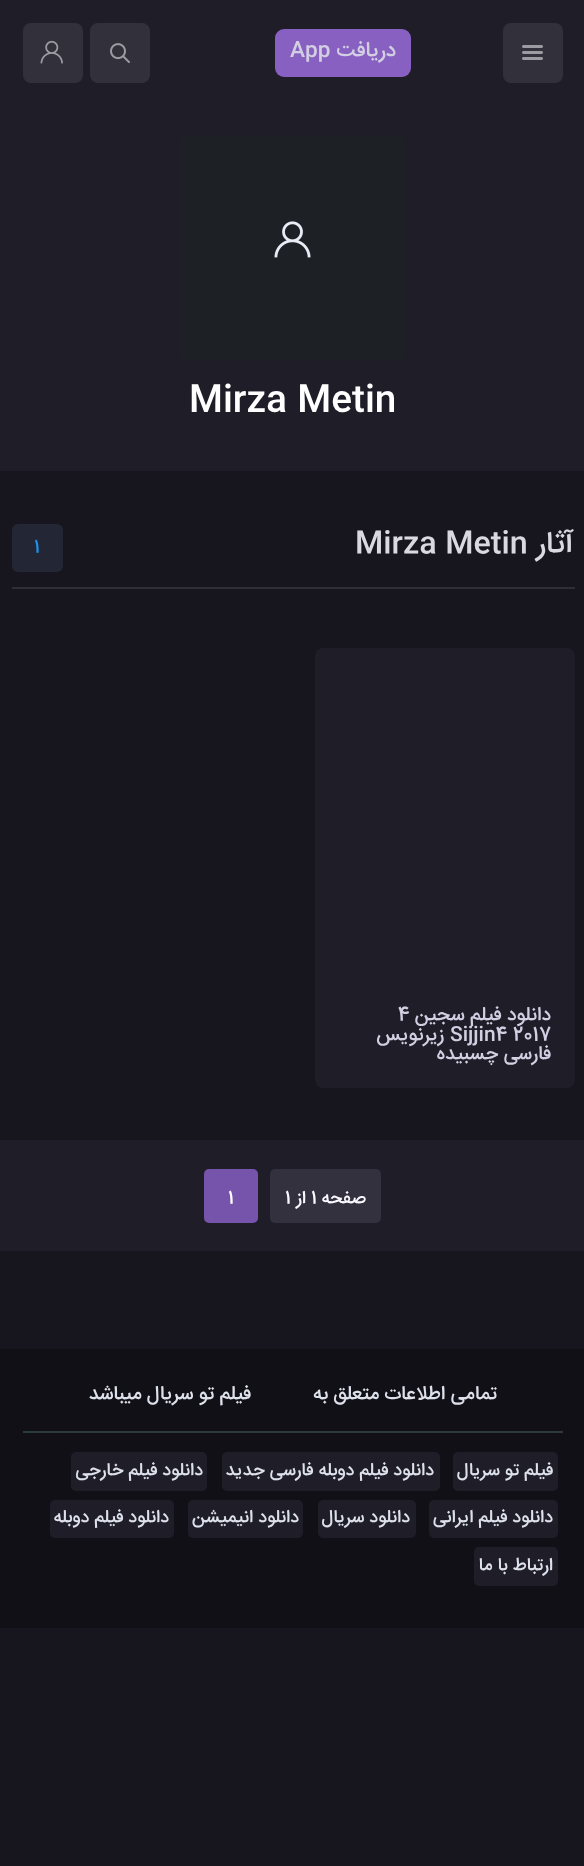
(async () => {
  const canvas = document.querySelector("canvas");
  canvas.width = 584;
  canvas.height = 1866;
  const ctx = canvas.getContext("2d");
  ctx.miterLimit = 4;
  ctx.fontKerning = "normal";
  async function loadImage(src) {
    const img = new Image();
    img.src = src;
    await img.decode();
    return img;
  }

  ctx.fillStyle = "#17151e";
  ctx.fillRect(0, 0, 584, 1866);
  ctx.fillStyle = "#1f1d28";
  ctx.fillRect(0, 0, 584, 471);
  ctx.fillStyle = "#32303a";
  ctx.beginPath();
  ctx.roundRect(503, 23, 60, 60, 8);
  ctx.fill();
  ctx.drawImage(await loadImage("img/1.png"), 522, 45, 21, 15);
  ctx.fillStyle = "#8860c2";
  ctx.beginPath();
  ctx.roundRect(275, 29, 136, 48, 9);
  ctx.fill();
  ctx.fillStyle = "#32303a";
  ctx.beginPath();
  ctx.roundRect(90, 23, 60, 60, 8);
  ctx.fill();
  ctx.drawImage(await loadImage("img/2.png"), 110, 43, 20, 20);
  ctx.beginPath();
  ctx.roundRect(23, 23, 60, 60, 8);
  ctx.fill();
  ctx.drawImage(await loadImage("img/3.png"), 40, 40, 23, 24);
  ctx.fillStyle = "#1d2126";
  ctx.beginPath();
  ctx.roundRect(180, 135, 225, 225, 8);
  ctx.fill();
  ctx.drawImage(await loadImage("img/4.png"), 274, 221, 37, 37);
  ctx.fillStyle = "#2f2e36";
  ctx.fillRect(12, 587, 563, 2);
  ctx.fillStyle = "#232634";
  ctx.beginPath();
  ctx.roundRect(12, 524, 51, 48, 6);
  ctx.fill();
  ctx.fillStyle = "#1f1d28";
  ctx.beginPath();
  ctx.roundRect(315, 648, 260, 440, 8);
  ctx.fill();
  ctx.fillRect(0, 1140, 584, 111);
  ctx.fillStyle = "#34313f";
  ctx.beginPath();
  ctx.roundRect(270, 1169, 111, 54, 5);
  ctx.fill();
  ctx.fillStyle = "#7754ab";
  ctx.beginPath();
  ctx.roundRect(204, 1169, 54, 54, 5);
  ctx.fill();
  ctx.fillStyle = "#121017";
  ctx.fillRect(0, 1349, 584, 279);
  ctx.fillStyle = "#2d3b3b";
  ctx.fillRect(23, 1431, 540, 2);
  ctx.fillStyle = "#1f1d28";
  ctx.beginPath();
  ctx.roundRect(453, 1452, 105, 39, 5);
  ctx.fill();
  ctx.beginPath();
  ctx.roundRect(222, 1452, 218, 39, 5);
  ctx.fill();
  ctx.beginPath();
  ctx.roundRect(71, 1452, 136, 39, 5);
  ctx.fill();
  ctx.beginPath();
  ctx.roundRect(429, 1500, 129, 38, 5);
  ctx.fill();
  ctx.beginPath();
  ctx.roundRect(318, 1500, 98, 38, 5);
  ctx.fill();
  ctx.beginPath();
  ctx.roundRect(188, 1500, 115, 38, 5);
  ctx.fill();
  ctx.beginPath();
  ctx.roundRect(50, 1500, 124, 38, 5);
  ctx.fill();
  ctx.beginPath();
  ctx.roundRect(474, 1547, 84, 39, 5);
  ctx.fill();
  ctx.direction = "rtl";
  ctx.font = "500 21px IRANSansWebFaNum";
  ctx.fillStyle = "#d2cfe2";
  ctx.fillText("دریافت", 396, 56);
  ctx.direction = "ltr";
  ctx.fillText("App", 290, 56);
  ctx.font = "500 36px IRANSansWebFaNum";
  ctx.fillStyle = "#ffffff";
  ctx.fillText("Mirza Metin", 189, 410);
  ctx.direction = "rtl";
  ctx.font = "500 30px IRANSansWebFaNum";
  ctx.fillStyle = "#dad9e2";
  ctx.fillText("آثار", 574, 552);
  ctx.direction = "ltr";
  ctx.fillText("Mirza Metin", 355, 552);
  ctx.font = "500 18px IRANSansWebFaNum";
  ctx.fillStyle = "#1e91ec";
  ctx.fillText("1", 34, 552);
  ctx.direction = "rtl";
  ctx.font = "500 19.5px IRANSansWebFaNum";
  ctx.fillStyle = "#d2cfe2";
  ctx.fillText("دانلود فیلم سجین", 551, 1020);
  ctx.direction = "ltr";
  ctx.fillText("4", 398, 1020);
  ctx.fillText("Sijjin4 2017", 450, 1040);
  ctx.direction = "rtl";
  ctx.fillText("زیرنویس", 444, 1040);
  ctx.fillText("فارسی چسبیده", 551, 1059);
  ctx.font = "500 18px IRANSansWebFaNum";
  ctx.fillStyle = "#fbf9ff";
  ctx.fillText("صفحه", 366, 1203);
  ctx.direction = "ltr";
  ctx.fillText("1", 311, 1203);
  ctx.direction = "rtl";
  ctx.fillText("از", 306, 1203);
  ctx.direction = "ltr";
  ctx.fillText("1", 285, 1203);
  ctx.fillStyle = "#ffffff";
  ctx.fillText("1", 228, 1203);
  ctx.direction = "rtl";
  ctx.font = "500 19.5px IRANSansWebFaNum";
  ctx.fillStyle = "#dde1eb";
  ctx.fillText("تمامی اطلاعات متعلق به", 497, 1399);
  ctx.fillText("فیلم تو سریال میباشد", 251, 1399);
  ctx.font = "500 18px IRANSansWebFaNum";
  for (const [text, x, y] of [
    ["فیلم تو سریال", 553, 1475],
    ["دانلود فیلم دوبله فارسی جدید", 434, 1475],
    ["دانلود فیلم خارجی", 203, 1475],
    ["دانلود فیلم ایرانی", 553, 1522],
    ["دانلود سریال", 410, 1522],
    ["دانلود انیمیشن", 299, 1522],
    ["دانلود فیلم دوبله", 169, 1522],
    ["ارتباط با ما", 553, 1570],
  ]) {
    ctx.fillText(text, x, y);
  }
})();
